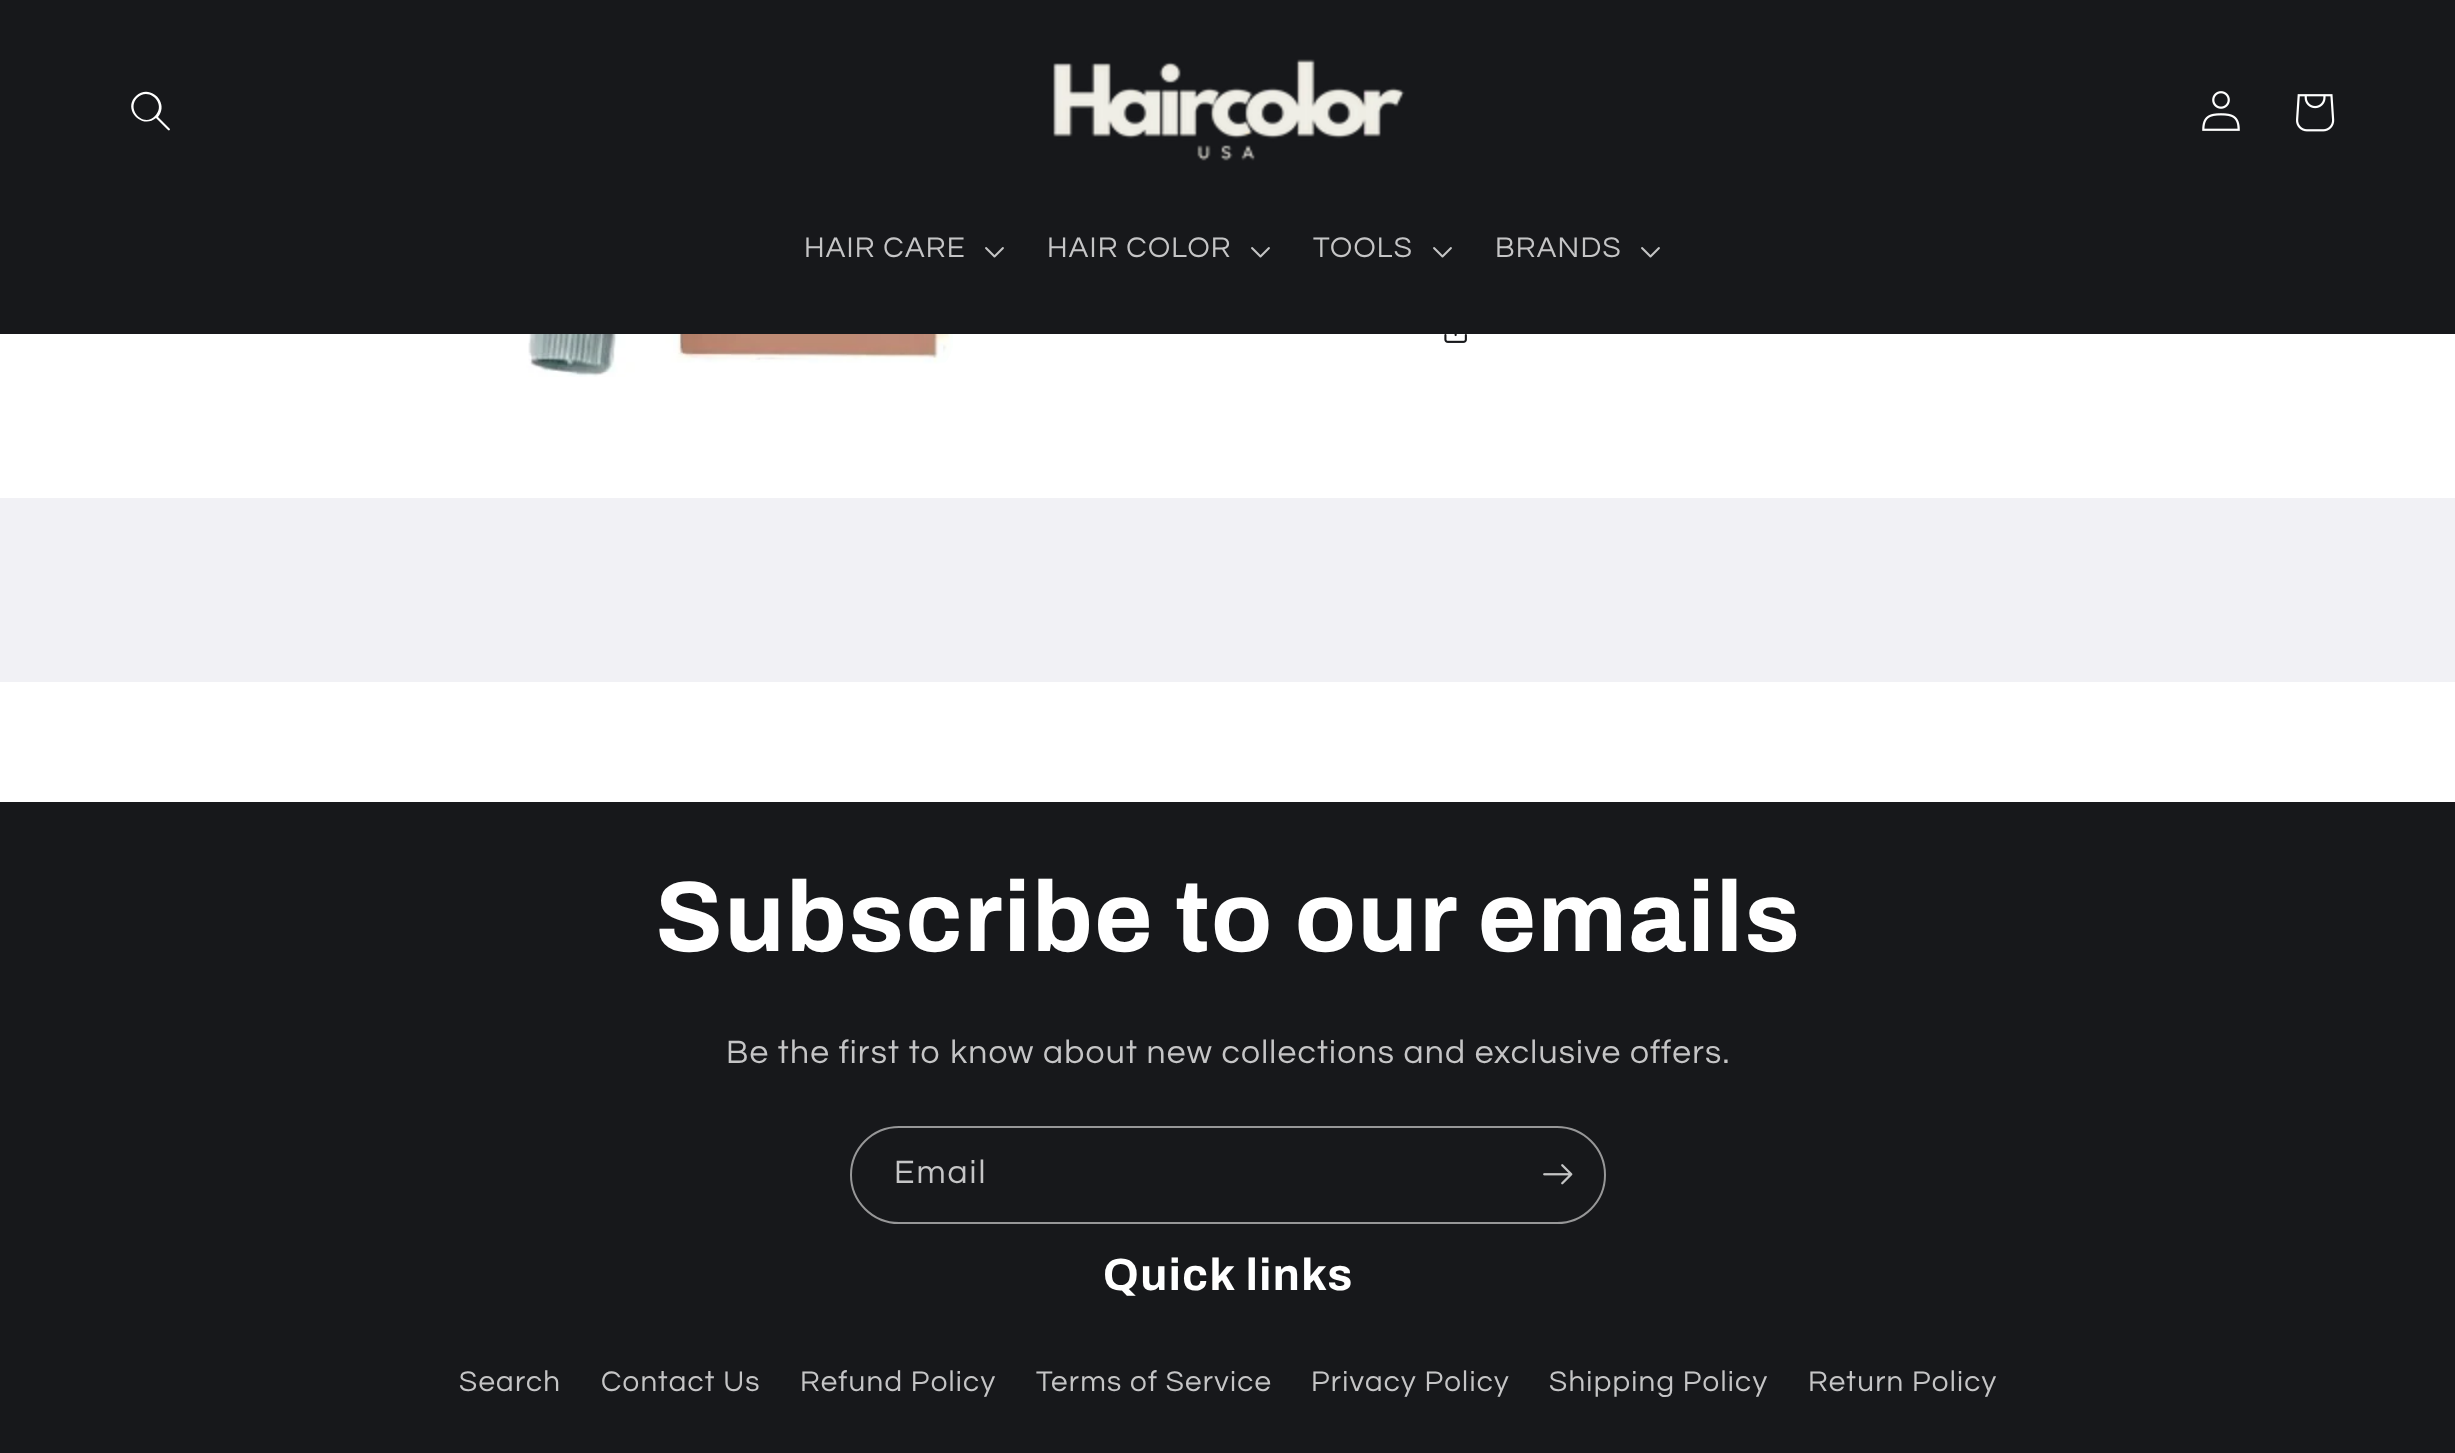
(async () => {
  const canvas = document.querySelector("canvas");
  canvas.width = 2455;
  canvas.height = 1453;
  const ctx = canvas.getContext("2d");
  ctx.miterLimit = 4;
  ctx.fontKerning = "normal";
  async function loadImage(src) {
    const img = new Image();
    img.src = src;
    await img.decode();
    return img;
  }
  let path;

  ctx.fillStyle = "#f1f1f5";
  ctx.fillRect(0, 0, 2455, 1453);
  ctx.fillStyle = "#17181b";
  ctx.fillRect(0, 0, 2455, 334);
  ctx.fillStyle = "#ffffff";
  path = new Path2D("M155 116C144 128 126 110 137 98C149 86 167 104 155 116M156 118C142 130 122 109 136 96C150 83 170 103 158 117L170 129C170 130 169 131 168 130Z");
  ctx.fill(path, "evenodd");
  ctx.drawImage(await loadImage("img/1.png"), 1053, 59, 352, 102);
  ctx.drawImage(await loadImage("img/2.png"), 2202, 91, 38, 40);
  ctx.drawImage(await loadImage("img/3.png"), 2296, 94, 39, 38);
  ctx.drawImage(await loadImage("img/4.png"), 985, 247, 19, 11);
  ctx.drawImage(await loadImage("img/4.png"), 1251, 247, 19, 11);
  ctx.drawImage(await loadImage("img/4.png"), 1433, 247, 19, 11);
  ctx.drawImage(await loadImage("img/4.png"), 1641, 247, 19, 11);
  ctx.fillRect(0, 334, 2455, 164);
  ctx.drawImage(await loadImage("img/5.png"), 490, 334, 463, 43);
  ctx.drawImage(await loadImage("img/6.png"), 1444, 334, 23, 9);
  ctx.fillRect(0, 682, 2455, 120);
  ctx.fillStyle = "#17181b";
  ctx.fillRect(0, 802, 2455, 651);
  ctx.beginPath();
  ctx.roundRect(851, 1127, 754, 96, 48);
  ctx.strokeStyle = "#979798";
  ctx.lineWidth = 2;
  ctx.stroke();
  ctx.drawImage(await loadImage("img/7.png"), 1543, 1164, 30, 21);
  ctx.letterSpacing = "1.25px";
  ctx.font = "29.5px Questrial";
  ctx.fillStyle = "#c5c5c6";
  for (const [text, x, y] of [
    ["HAIR CARE", 804, 257],
    ["HAIR COLOR", 1047, 257],
    ["TOOLS", 1313, 257],
    ["BRANDS", 1495, 257],
  ]) {
    ctx.fillText(text, x, y);
  }
  ctx.letterSpacing = "1.5px";
  ctx.font = "bold 100px Archivo";
  ctx.fillStyle = "#ffffff";
  ctx.fillText("Subscribe to our emails", 655, 951);
  ctx.letterSpacing = "1.25px";
  ctx.font = "33.6px Questrial";
  ctx.fillStyle = "#c5c5c6";
  ctx.fillText("Be the first to know about new collections and exclusive offers.", 726, 1063);
  ctx.letterSpacing = "2px";
  ctx.fillText("Email", 894, 1183);
  ctx.letterSpacing = "1.5px";
  ctx.font = "bold 45px Archivo";
  ctx.fillStyle = "#ffffff";
  ctx.fillText("Quick links", 1103, 1290);
  ctx.letterSpacing = "1.25px";
  ctx.font = "29.5px Questrial";
  ctx.fillStyle = "#c5c5c6";
  for (const [text, x, y] of [
    ["Search", 459, 1391],
    ["Contact Us", 601, 1391],
    ["Refund Policy", 800, 1391],
    ["Terms of Service", 1036, 1391],
    ["Privacy Policy", 1311, 1391],
    ["Shipping Policy", 1549, 1391],
    ["Return Policy", 1808, 1391],
  ]) {
    ctx.fillText(text, x, y);
  }
})();
